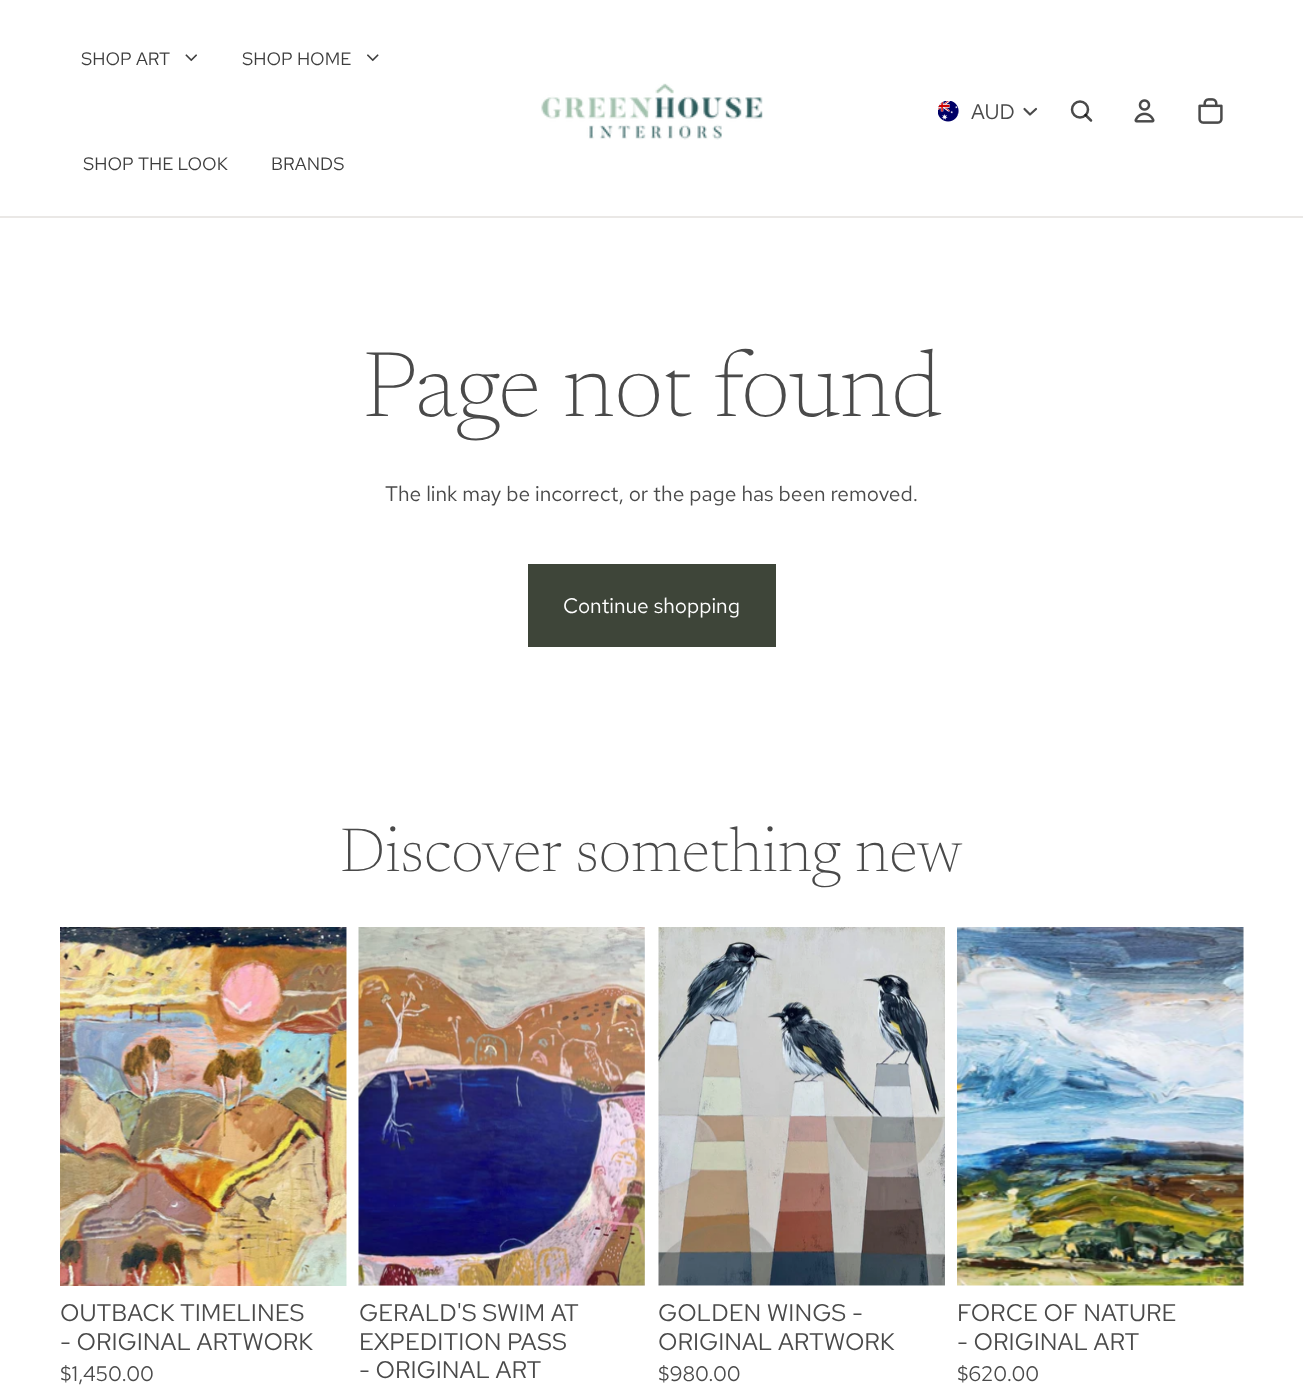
(async () => {
  const canvas = document.querySelector("canvas");
  canvas.width = 1303;
  canvas.height = 1387;
  const ctx = canvas.getContext("2d");
  ctx.miterLimit = 4;
  ctx.fontKerning = "normal";
  async function loadImage(src) {
    const img = new Image();
    img.src = src;
    await img.decode();
    return img;
  }
  let path;

  ctx.fillStyle = "#ffffff";
  ctx.fillRect(0, 0, 1303, 1387);
  ctx.fillStyle = "#eae8e6";
  ctx.fillRect(0, 216, 1303, 2);
  ctx.drawImage(await loadImage("img/1.png"), 185, 54, 12, 8);
  ctx.drawImage(await loadImage("img/2.png"), 367, 54, 12, 8);
  ctx.drawImage(await loadImage("img/3.png"), 541, 83, 222, 57);
  ctx.drawImage(await loadImage("img/4.png"), 938, 101, 21, 21);
  path = new Path2D("M1036 109L1030 114.5L1024.5 109");
  ctx.strokeStyle = "#4a4a4a";
  ctx.lineWidth = 2.2;
  ctx.lineCap = "round";
  ctx.lineJoin = "round";
  ctx.stroke(path);
  ctx.beginPath();
  ctx.arc(1080, 109.5, 8, 0, Math.PI * 2);
  ctx.lineWidth = 2.5;
  ctx.stroke();
  path = new Path2D("M1085.5 115L1091 120.5");
  ctx.strokeStyle = "rgba(0, 0, 0, 0.71)";
  ctx.stroke(path);
  ctx.drawImage(await loadImage("img/5.png"), 1134, 99, 21, 24);
  ctx.drawImage(await loadImage("img/6.png"), 1198, 98, 25, 26);
  ctx.fillStyle = "#3e4539";
  ctx.fillRect(528, 564, 248, 83);
  ctx.drawImage(await loadImage("img/7.png"), 60, 927, 287, 359);
  ctx.drawImage(await loadImage("img/8.png"), 358, 927, 287, 359);
  ctx.drawImage(await loadImage("img/9.png"), 658, 927, 287, 359);
  ctx.drawImage(await loadImage("img/10.png"), 957, 927, 287, 359);
  ctx.font = "18px Red Hat Text";
  ctx.fillStyle = "#3e3e3e";
  for (const [text, x, y] of [
    ["SHOP ART", 81, 65],
    ["SHOP HOME", 242, 65],
    ["SHOP THE LOOK", 83, 170],
    ["BRANDS", 271, 170],
  ]) {
    ctx.fillText(text, x, y);
  }
  ctx.font = "21px Red Hat Text";
  ctx.fillStyle = "#4a4a4a";
  ctx.fillText("AUD", 971, 119);
  ctx.font = "200 94px Newsreader";
  ctx.fillText("Page not found", 363, 416);
  ctx.font = "21px Red Hat Text";
  ctx.fillText("The link may be incorrect, or the page has been removed.", 385, 501);
  ctx.fillStyle = "#ffffff";
  ctx.fillText("Continue shopping", 563, 613);
  ctx.font = "200 62.5px Newsreader";
  ctx.fillStyle = "#4a4a4a";
  ctx.fillText("Discover something new", 340, 871);
  ctx.font = "24px Red Hat Text";
  ctx.fillText("OUTBACK TIMELINES", 60, 1321);
  ctx.fillText("- ORIGINAL ARTWORK", 60, 1350);
  ctx.font = "21px Red Hat Text";
  ctx.fillText("$1,450.00", 60, 1381);
  ctx.font = "24px Red Hat Text";
  for (const [text, x, y] of [
    ["GERALD'S SWIM AT", 359, 1321],
    ["EXPEDITION PASS", 359, 1350],
    ["- ORIGINAL ART", 359, 1378],
    ["GOLDEN WINGS -", 658, 1321],
    ["ORIGINAL ARTWORK", 658, 1350],
  ]) {
    ctx.fillText(text, x, y);
  }
  ctx.font = "21px Red Hat Text";
  ctx.fillText("$980.00", 658, 1381);
  ctx.font = "24px Red Hat Text";
  ctx.fillText("FORCE OF NATURE", 957, 1321);
  ctx.fillText("- ORIGINAL ART", 957, 1350);
  ctx.font = "21px Red Hat Text";
  ctx.fillText("$620.00", 957, 1381);
})();
